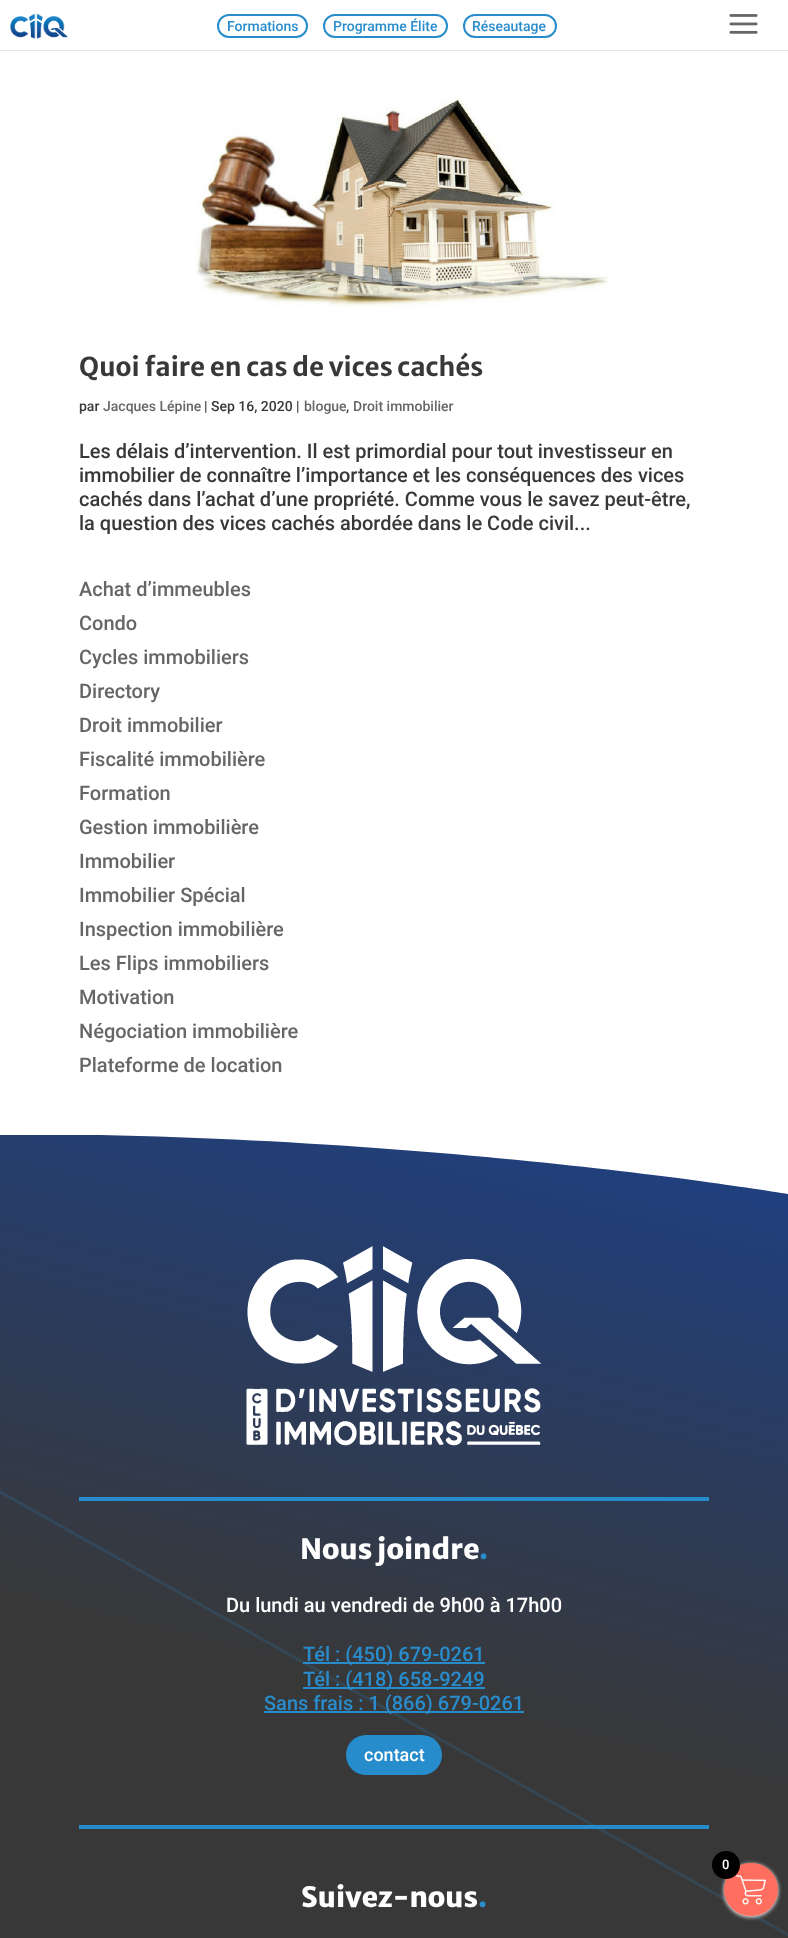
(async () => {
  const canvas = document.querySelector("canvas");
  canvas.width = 788;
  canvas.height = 1938;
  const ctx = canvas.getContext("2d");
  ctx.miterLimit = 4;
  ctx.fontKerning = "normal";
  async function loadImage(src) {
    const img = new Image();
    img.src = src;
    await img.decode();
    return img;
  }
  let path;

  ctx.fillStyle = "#ffffff";
  ctx.fillRect(0, 0, 788, 1938);
  ctx.fillStyle = "#e6e6e6";
  ctx.fillRect(0, 50, 788, 1);
  ctx.drawImage(await loadImage("img/1.png"), 10, 13, 58, 26);
  ctx.beginPath();
  ctx.roundRect(218, 15, 89, 22, 11);
  ctx.strokeStyle = "#278ccb";
  ctx.lineWidth = 2;
  ctx.stroke();
  ctx.beginPath();
  ctx.roundRect(324, 15, 123, 22, 11);
  ctx.stroke();
  ctx.beginPath();
  ctx.roundRect(464, 15, 92, 22, 11);
  ctx.stroke();
  ctx.drawImage(await loadImage("img/2.png"), 729, 14, 29, 20);
  ctx.drawImage(await loadImage("img/3.png"), 196, 97, 413, 211);
  ctx.drawImage(await loadImage("img/4.png"), 0, 1135, 788, 803);
  ctx.fillStyle = "#ffffff";
  path = new Path2D("M788 1134H0C435 1134 788 1194 788 1194Z");
  ctx.fill(path);
  ctx.drawImage(await loadImage("img/5.png"), 246, 1246, 295, 200);
  for (const [x, y, w, h, color] of [
    [79, 1497, 630, 4, "#278ccb"],
    [303, 1662, 182, 2, "#278ccb"],
    [303, 1687, 182, 2, "#278ccb"],
    [264, 1711, 260, 2, "#278ccb"],
  ]) {
    ctx.fillStyle = color;
    ctx.fillRect(x, y, w, h);
  }
  ctx.beginPath();
  ctx.roundRect(346, 1735, 96, 40, 20);
  ctx.fill();
  ctx.fillRect(79, 1825, 630, 4);
  ctx.fillStyle = "#ffffff";
  ctx.filter = "blur(2px)";
  ctx.beginPath();
  ctx.roundRect(724, 1864, 54, 53, 26.5);
  ctx.fill();
  ctx.filter = "none";
  ctx.fillStyle = "#ff6e5e";
  ctx.beginPath();
  ctx.roundRect(724, 1863, 54, 53, 26.5);
  ctx.fill();
  ctx.fillStyle = "#000000";
  ctx.beginPath();
  ctx.arc(726, 1865, 14, 0, Math.PI * 2);
  ctx.fill();
  ctx.drawImage(await loadImage("img/6.png"), 736, 1875, 30, 30);
  ctx.font = "500 14px Roboto";
  ctx.fillStyle = "#298dcd";
  for (const [text, x, y] of [
    ["Formations", 227, 31],
    ["Programme Élite", 333, 31],
    ["Réseautage", 472, 31],
  ]) {
    ctx.fillText(text, x, y);
  }
  ctx.font = "bold 26px Merriweather Sans";
  ctx.fillStyle = "#383838";
  ctx.fillText("Quoi faire en cas de vices cachés", 79, 376);
  ctx.font = "500 14px Roboto";
  ctx.fillText("par", 79, 411);
  ctx.fillStyle = "#666666";
  ctx.fillText("Jacques Lépine", 103, 411);
  ctx.fillStyle = "#383838";
  ctx.fillText("| Sep 16, 2020 |", 204, 411);
  ctx.fillStyle = "#666666";
  ctx.fillText("blogue", 304, 411);
  ctx.fillStyle = "#383838";
  ctx.fillText(",", 346, 411);
  ctx.fillStyle = "#666666";
  ctx.fillText("Droit immobilier", 353, 411);
  ctx.font = "500 20px Roboto";
  ctx.fillStyle = "#383838";
  for (const [text, x, y] of [
    ["Les délais d’intervention. Il est primordial pour tout investisseur en", 79, 458],
    ["immobilier de connaître l’importance et les conséquences des vices", 79, 482],
    ["cachés dans l’achat d’une propriété. Comme vous le savez peut-être,", 79, 506],
    ["la question des vices cachés abordée dans le Code civil...", 79, 530],
  ]) {
    ctx.fillText(text, x, y);
  }
  ctx.fillStyle = "#666666";
  for (const [text, x, y] of [
    ["Achat d’immeubles", 79, 596],
    ["Condo", 79, 630],
    ["Cycles immobiliers", 79, 664],
    ["Directory", 79, 698],
    ["Droit immobilier", 79, 732],
    ["Fiscalité immobilière", 79, 766],
    ["Formation", 79, 800],
    ["Gestion immobilière", 79, 834],
    ["Immobilier", 79, 868],
    ["Immobilier Spécial", 79, 902],
    ["Inspection immobilière", 79, 936],
    ["Les Flips immobiliers", 79, 970],
    ["Motivation", 79, 1004],
    ["Négociation immobilière", 79, 1038],
    ["Plateforme de location", 79, 1072],
  ]) {
    ctx.fillText(text, x, y);
  }
  ctx.font = "800 28px Merriweather Sans";
  ctx.fillStyle = "#ffffff";
  ctx.fillText("Nous joindre", 300, 1559);
  ctx.fillStyle = "#298dcd";
  ctx.fillText(".", 479, 1559);
  ctx.font = "500 20px Roboto";
  ctx.fillStyle = "#ffffff";
  ctx.fillText("Du lundi au vendredi de 9h00 à 17h00", 226, 1612);
  ctx.fillStyle = "#298dcd";
  for (const [text, x, y] of [
    ["Tél : (450) 679-0261", 303, 1661],
    ["Tél : (418) 658-9249", 303, 1686],
    ["Sans frais : 1 (866) 679-0261", 264, 1710],
  ]) {
    ctx.fillText(text, x, y);
  }
  ctx.font = "500 18px Roboto";
  ctx.fillStyle = "#ffffff";
  ctx.fillText("contact", 364, 1761);
  ctx.font = "800 28px Merriweather Sans";
  ctx.fillText("Suivez-nous", 301, 1907);
  ctx.fillStyle = "#298dcd";
  ctx.fillText(".", 478, 1907);
  ctx.font = "500 13px Roboto";
  ctx.fillStyle = "#ffffff";
  ctx.fillText("0", 722, 1869);
})();
